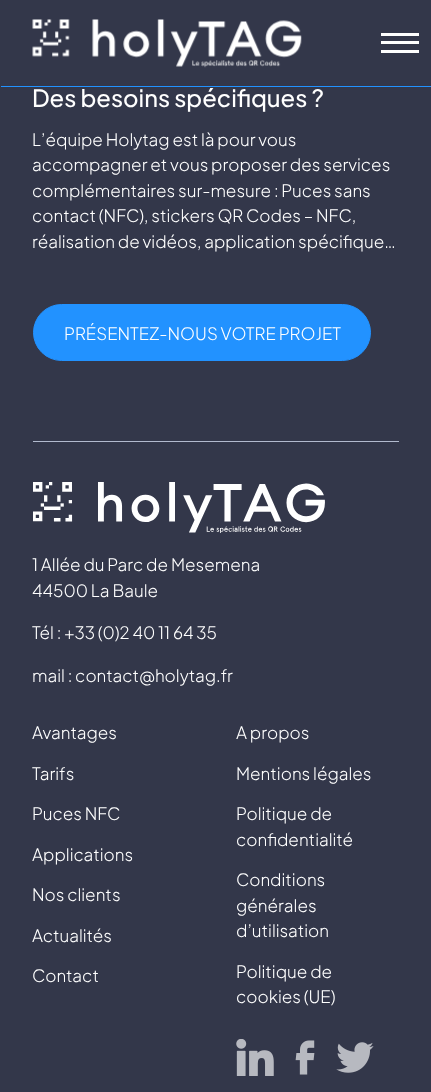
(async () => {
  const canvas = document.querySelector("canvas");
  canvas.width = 431;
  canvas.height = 1092;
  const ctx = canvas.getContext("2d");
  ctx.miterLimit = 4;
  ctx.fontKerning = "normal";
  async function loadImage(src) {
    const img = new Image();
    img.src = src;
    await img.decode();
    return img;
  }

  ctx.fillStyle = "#33374a";
  ctx.fillRect(0, 0, 431, 1092);
  ctx.drawImage(await loadImage("img/1.png"), 32, 19, 270, 49);
  for (const [x, y, w, h, color] of [
    [381, 33, 38, 3, "#ffffff"],
    [381, 41, 38, 3, "#ffffff"],
    [381, 50, 38, 3, "#ffffff"],
    [1, 86, 430, 1, "#2292ff"],
    [33, 441, 366, 1, "#b2bace"],
  ]) {
    ctx.fillStyle = color;
    ctx.fillRect(x, y, w, h);
  }
  ctx.fillStyle = "#2292ff";
  ctx.beginPath();
  ctx.roundRect(33.5, 304.5, 337, 56, 28);
  ctx.fill();
  ctx.strokeStyle = "#2292ff";
  ctx.stroke();
  ctx.drawImage(await loadImage("img/2.png"), 33, 482, 292, 51);
  ctx.drawImage(await loadImage("img/3.png"), 236, 1039, 38, 37);
  ctx.drawImage(await loadImage("img/4.png"), 295, 1040, 20, 35);
  ctx.drawImage(await loadImage("img/5.png"), 336, 1042, 38, 31);
  ctx.font = "500 23.75px Plus Jakarta Sans";
  ctx.fillStyle = "#ffffff";
  ctx.fillText("Des besoins spécifiques ?", 32, 107);
  ctx.font = "300 17px Plus Jakarta Sans";
  for (const [text, x, y] of [
    ["L’équipe Holytag est là pour vous", 32, 146],
    ["accompagner et vous proposer des services", 32, 171],
    ["complémentaires sur-mesure : Puces sans", 32, 197],
    ["contact (NFC), stickers QR Codes – NFC,", 32, 222],
    ["réalisation de vidéos, application spécifique…", 32, 248],
    ["PRÉSENTEZ-NOUS VOTRE PROJET", 64, 340],
    ["1 Allée du Parc de Mesemena", 32, 571],
    ["44500 La Baule", 32, 597],
    ["Tél : +33 (0)2 40 11 64 35", 32, 639],
    ["mail : contact@holytag.fr", 32, 682],
    ["Avantages", 32, 739],
    ["Tarifs", 32, 780],
    ["Puces NFC", 32, 820],
    ["Applications", 32, 861],
    ["Nos clients", 32, 901],
    ["Actualités", 32, 942],
    ["Contact", 32, 982],
    ["A propos", 236, 739],
    ["Mentions légales", 236, 780],
    ["Politique de", 236, 820],
    ["confidentialité", 236, 846],
    ["Conditions", 236, 886],
    ["générales", 236, 912],
    ["d’utilisation", 236, 937],
    ["Politique de", 236, 978],
    ["cookies (UE)", 236, 1003],
  ]) {
    ctx.fillText(text, x, y);
  }
})();
